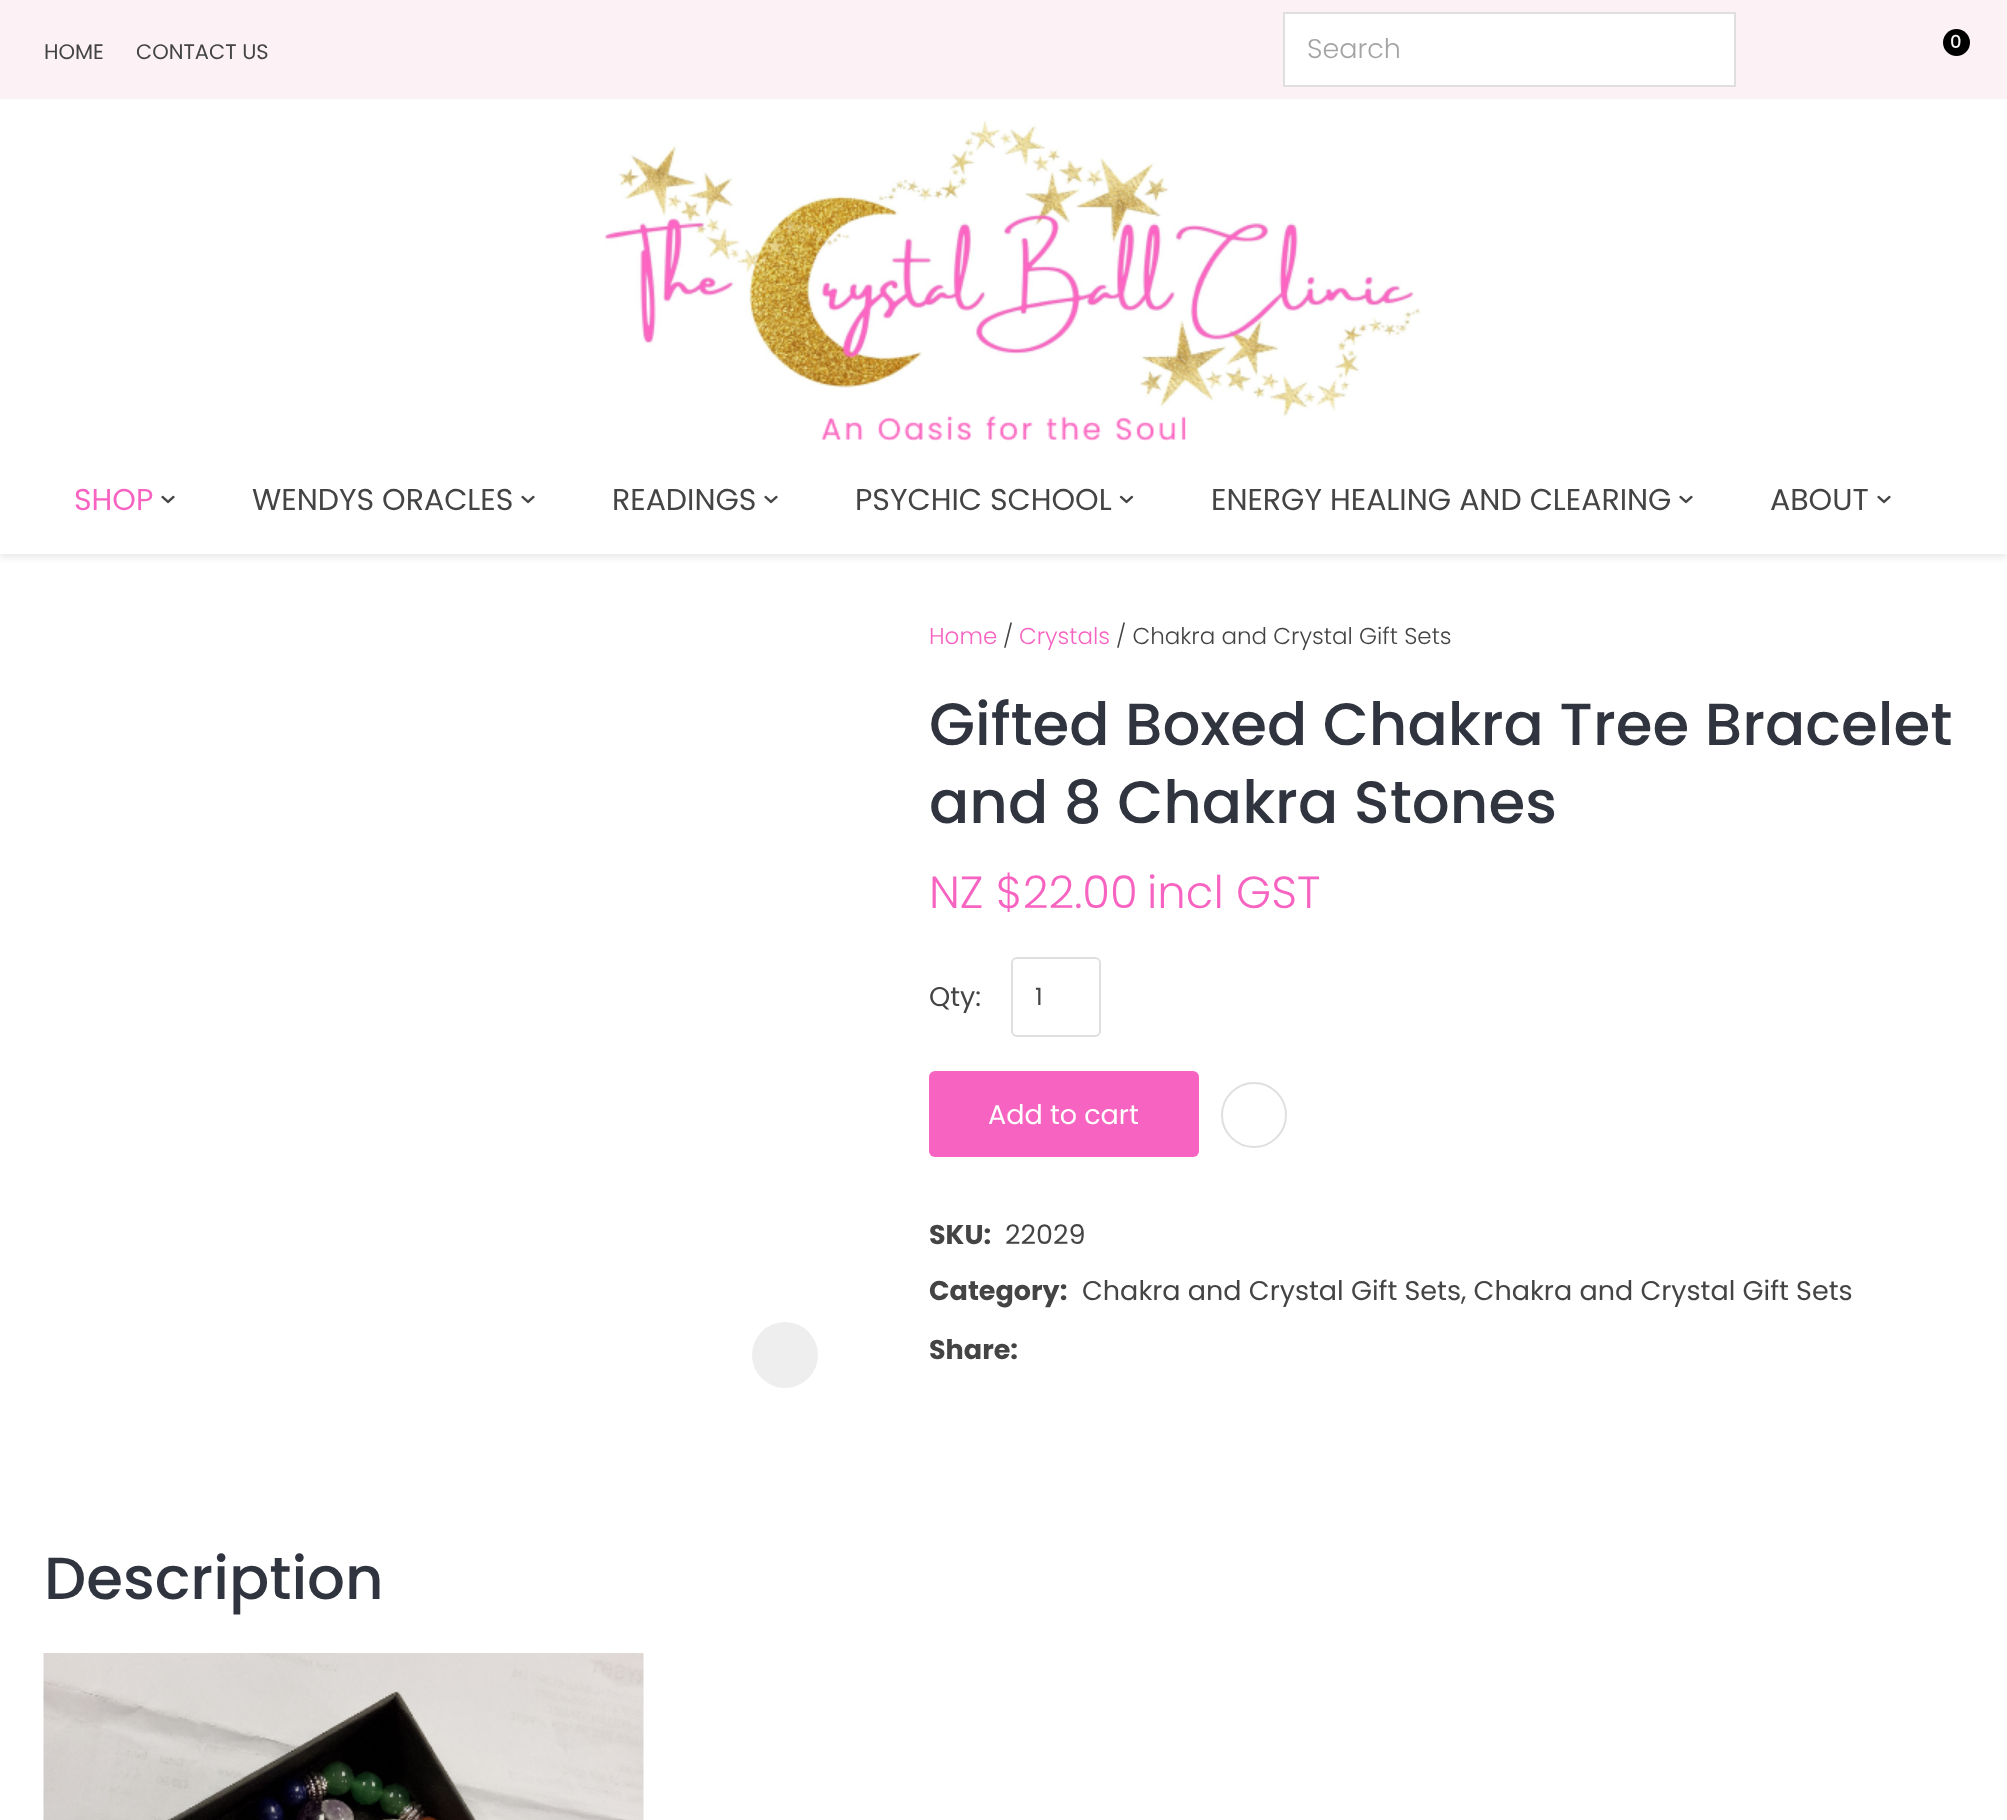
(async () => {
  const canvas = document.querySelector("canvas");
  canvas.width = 2007;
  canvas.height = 1820;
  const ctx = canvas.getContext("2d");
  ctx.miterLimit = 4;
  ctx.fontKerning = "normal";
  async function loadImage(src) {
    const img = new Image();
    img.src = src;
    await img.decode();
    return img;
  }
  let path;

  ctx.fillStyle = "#ffffff";
  ctx.fillRect(0, 0, 2007, 1820);
  ctx.save();
  path = new Path2D("M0 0H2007V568H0ZM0 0H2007V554H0Z");
  ctx.clip(path, "evenodd");
  ctx.fillStyle = "rgba(0, 0, 0, 0.08)";
  ctx.filter = "blur(3px)";
  ctx.beginPath();
  ctx.rect(0, 5, 2007, 553);
  ctx.fill();
  ctx.filter = "none";
  ctx.restore();
  ctx.fillStyle = "#fcf2f5";
  ctx.fillRect(0, 0, 2007, 99);
  ctx.fillStyle = "#ffffff";
  ctx.beginPath();
  ctx.rect(1284, 13, 451, 73);
  ctx.fill();
  ctx.strokeStyle = "#dfdfdf";
  ctx.lineWidth = 2;
  ctx.stroke();
  ctx.fillStyle = "#000000";
  ctx.beginPath();
  ctx.arc(1956.5, 42.5, 13.5, 0, Math.PI * 2);
  ctx.fill();
  ctx.drawImage(await loadImage("img/1.png"), 604, 119, 817, 322);
  ctx.drawImage(await loadImage("img/2.png"), 161, 495, 14, 9);
  ctx.drawImage(await loadImage("img/2.png"), 521, 495, 14, 9);
  ctx.drawImage(await loadImage("img/2.png"), 764, 495, 14, 9);
  ctx.drawImage(await loadImage("img/3.png"), 1119, 495, 15, 9);
  ctx.drawImage(await loadImage("img/2.png"), 1679, 495, 14, 9);
  ctx.drawImage(await loadImage("img/2.png"), 1877, 495, 14, 9);
  ctx.fillStyle = "#eeeeee";
  ctx.beginPath();
  ctx.arc(785, 1355, 33, 0, Math.PI * 2);
  ctx.fill();
  ctx.beginPath();
  ctx.roundRect(1012, 958, 88, 78, 5);
  ctx.stroke();
  ctx.fillStyle = "#f763c1";
  ctx.beginPath();
  ctx.roundRect(929, 1071, 270, 86, 6);
  ctx.fill();
  ctx.beginPath();
  ctx.arc(1254, 1115, 32, 0, Math.PI * 2);
  ctx.stroke();
  ctx.drawImage(await loadImage("img/4.png"), 43, 1653, 601, 167);
  ctx.font = "21px Poppins";
  ctx.fillStyle = "#444444";
  ctx.fillText("HOME", 44, 59);
  ctx.fillText("CONTACT US", 136, 59);
  ctx.font = "300 27px Poppins";
  ctx.fillStyle = "#a4a4a4";
  ctx.fillText("Search", 1307, 58);
  ctx.font = "500 18px Poppins";
  ctx.fillStyle = "#f8f8f8";
  ctx.fillText("0", 1950, 48);
  ctx.font = "30px Poppins";
  ctx.fillStyle = "#f763c1";
  ctx.fillText("SHOP", 74, 510);
  ctx.fillStyle = "#444444";
  for (const [text, x, y] of [
    ["WENDYS ORACLES", 252, 510],
    ["READINGS", 612, 510],
    ["PSYCHIC SCHOOL", 855, 510],
    ["ENERGY HEALING AND CLEARING", 1211, 510],
    ["ABOUT", 1770, 510],
  ]) {
    ctx.fillText(text, x, y);
  }
  ctx.font = "300 23px Poppins";
  ctx.fillStyle = "#f763c1";
  ctx.fillText("Home", 929, 644);
  ctx.fillStyle = "#444444";
  ctx.fillText("/", 1003, 644);
  ctx.fillStyle = "#f763c1";
  ctx.fillText("Crystals", 1019, 644);
  ctx.fillStyle = "#444444";
  ctx.fillText("/ Chakra and Crystal Gift Sets", 1116, 644);
  ctx.font = "500 59.5px Poppins";
  ctx.fillStyle = "#30343f";
  ctx.fillText("Gifted Boxed Chakra Tree Bracelet", 929, 745);
  ctx.fillText("and 8 Chakra Stones", 929, 823);
  ctx.font = "300 45px Poppins";
  ctx.fillStyle = "#f763c1";
  ctx.fillText("NZ $22.00", 929, 908);
  ctx.fillText("incl GST", 1147, 908);
  ctx.font = "27px Poppins";
  ctx.fillStyle = "#444444";
  ctx.fillText("Qty:", 929, 1006);
  ctx.font = "24px Poppins";
  ctx.fillText("1", 1035, 1005);
  ctx.font = "27px Poppins";
  ctx.fillStyle = "#ffffff";
  ctx.fillText("Add to cart", 988, 1124);
  ctx.font = "bold 27px Poppins";
  ctx.fillStyle = "#444444";
  ctx.fillText("SKU:", 929, 1244);
  ctx.font = "27px Poppins";
  ctx.fillText("22029", 1005, 1244);
  ctx.font = "bold 27px Poppins";
  ctx.fillText("Category:", 929, 1300);
  ctx.font = "27px Poppins";
  ctx.fillText("Chakra and Crystal Gift Sets, Chakra and Crystal Gift Sets", 1082, 1300);
  ctx.font = "bold 27px Poppins";
  ctx.fillText("Share:", 929, 1359);
  ctx.font = "500 59.5px Poppins";
  ctx.fillStyle = "#30343f";
  ctx.fillText("Description", 44, 1599);
})();
